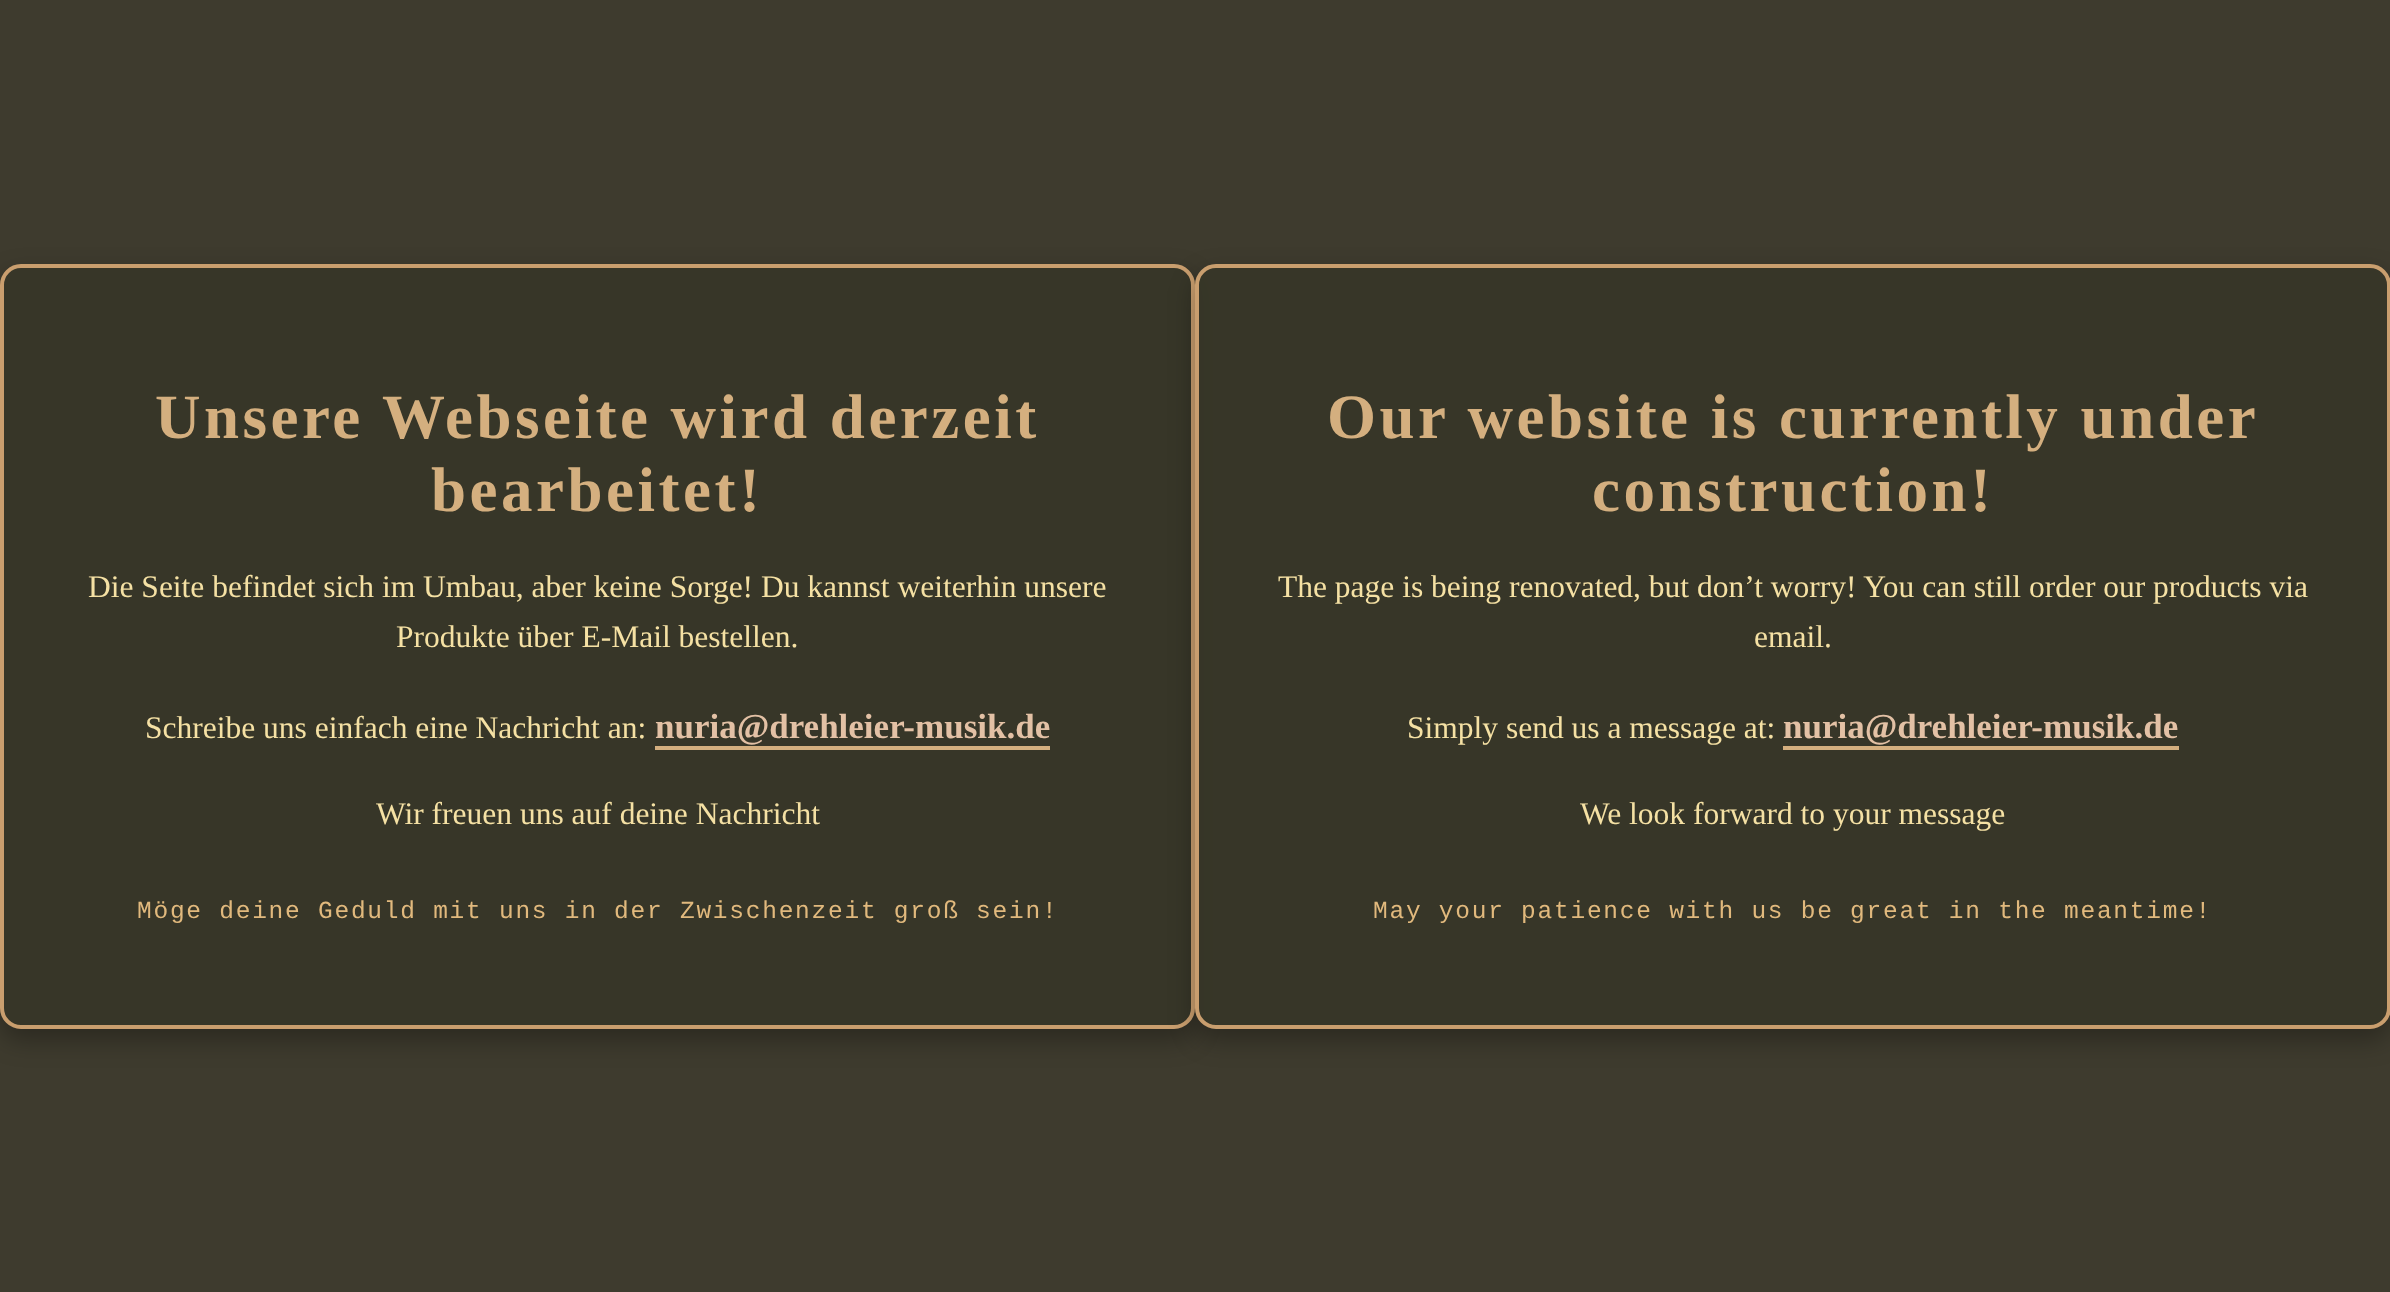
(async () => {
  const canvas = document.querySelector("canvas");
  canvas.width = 2390;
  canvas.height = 1292;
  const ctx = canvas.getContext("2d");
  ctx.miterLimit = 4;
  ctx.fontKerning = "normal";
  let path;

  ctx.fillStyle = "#3e3b2e";
  ctx.fillRect(0, 0, 2390, 1292);
  ctx.save();
  path = new Path2D("M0 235H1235V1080H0ZM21 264H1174C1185.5 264 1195 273.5 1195 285V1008C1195 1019.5 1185.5 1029 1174 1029H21C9.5 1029 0 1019.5 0 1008V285C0 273.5 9.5 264 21 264Z");
  ctx.clip(path, "evenodd");
  ctx.fillStyle = "rgba(0, 0, 0, 0.3)";
  ctx.filter = "blur(13px)";
  ctx.beginPath();
  ctx.roundRect(0, 275, 1195, 765, 21);
  ctx.fill();
  ctx.filter = "none";
  ctx.restore();
  ctx.fillStyle = "rgba(54, 54, 39, 0.8)";
  ctx.beginPath();
  ctx.roundRect(2, 266, 1191, 761, 19);
  ctx.fill();
  ctx.strokeStyle = "#c99e6e";
  ctx.lineWidth = 4;
  ctx.stroke();
  ctx.fillStyle = "#d4af7f";
  ctx.fillRect(655, 746, 395, 4);
  ctx.save();
  path = new Path2D("M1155 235H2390V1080H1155ZM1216 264H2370C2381.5 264 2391 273.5 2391 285V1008C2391 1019.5 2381.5 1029 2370 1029H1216C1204.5 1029 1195 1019.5 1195 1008V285C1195 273.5 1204.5 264 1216 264Z");
  ctx.clip(path, "evenodd");
  ctx.fillStyle = "rgba(0, 0, 0, 0.3)";
  ctx.filter = "blur(13px)";
  ctx.beginPath();
  ctx.roundRect(1195, 275, 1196, 765, 21);
  ctx.fill();
  ctx.filter = "none";
  ctx.restore();
  ctx.fillStyle = "rgba(54, 54, 39, 0.8)";
  ctx.beginPath();
  ctx.roundRect(1197, 266, 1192, 761, 19);
  ctx.fill();
  ctx.stroke();
  ctx.fillStyle = "#d4af7f";
  ctx.fillRect(1783, 746, 396, 4);
  ctx.letterSpacing = "3.5px";
  ctx.font = "bold 63px Liberation Serif";
  ctx.fillText("Unsere Webseite wird derzeit", 155, 438);
  ctx.fillText("bearbeitet!", 431, 511);
  ctx.letterSpacing = "0px";
  ctx.font = "31.5px Liberation Serif";
  ctx.fillStyle = "#f5e1a4";
  for (const [text, x, y] of [
    ["Die Seite befindet sich im Umbau, aber keine Sorge! Du kannst weiterhin unsere", 88, 597],
    ["Produkte über E-Mail bestellen.", 396, 647],
    ["Schreibe uns einfach eine Nachricht an:", 145, 738],
  ]) {
    ctx.fillText(text, x, y);
  }
  ctx.font = "bold 35px Liberation Serif";
  ctx.fillStyle = "#e3c1a5";
  ctx.fillText("nuria@drehleier-musik.de", 655, 738);
  ctx.font = "31.5px Liberation Serif";
  ctx.fillStyle = "#f5e1a4";
  ctx.fillText("Wir freuen uns auf deine Nachricht", 376, 824);
  ctx.letterSpacing = "1.75px";
  ctx.font = "24.5px Liberation Mono";
  ctx.fillStyle = "#e1b97d";
  ctx.fillText("Möge deine Geduld mit uns in der Zwischenzeit groß sein!", 137, 918);
  ctx.letterSpacing = "3.5px";
  ctx.font = "bold 63px Liberation Serif";
  ctx.fillStyle = "#d4af7f";
  ctx.fillText("Our website is currently under", 1327, 438);
  ctx.fillText("construction!", 1592, 511);
  ctx.letterSpacing = "0px";
  ctx.font = "31.5px Liberation Serif";
  ctx.fillStyle = "#f5e1a4";
  for (const [text, x, y] of [
    ["The page is being renovated, but don’t worry! You can still order our products via", 1278, 597],
    ["email.", 1754, 647],
    ["Simply send us a message at:", 1407, 738],
  ]) {
    ctx.fillText(text, x, y);
  }
  ctx.font = "bold 35px Liberation Serif";
  ctx.fillStyle = "#e3c1a5";
  ctx.fillText("nuria@drehleier-musik.de", 1783, 738);
  ctx.font = "31.5px Liberation Serif";
  ctx.fillStyle = "#f5e1a4";
  ctx.fillText("We look forward to your message", 1580, 824);
  ctx.letterSpacing = "1.75px";
  ctx.font = "24.5px Liberation Mono";
  ctx.fillStyle = "#e1b97d";
  ctx.fillText("May your patience with us be great in the meantime!", 1373, 918);
})();
